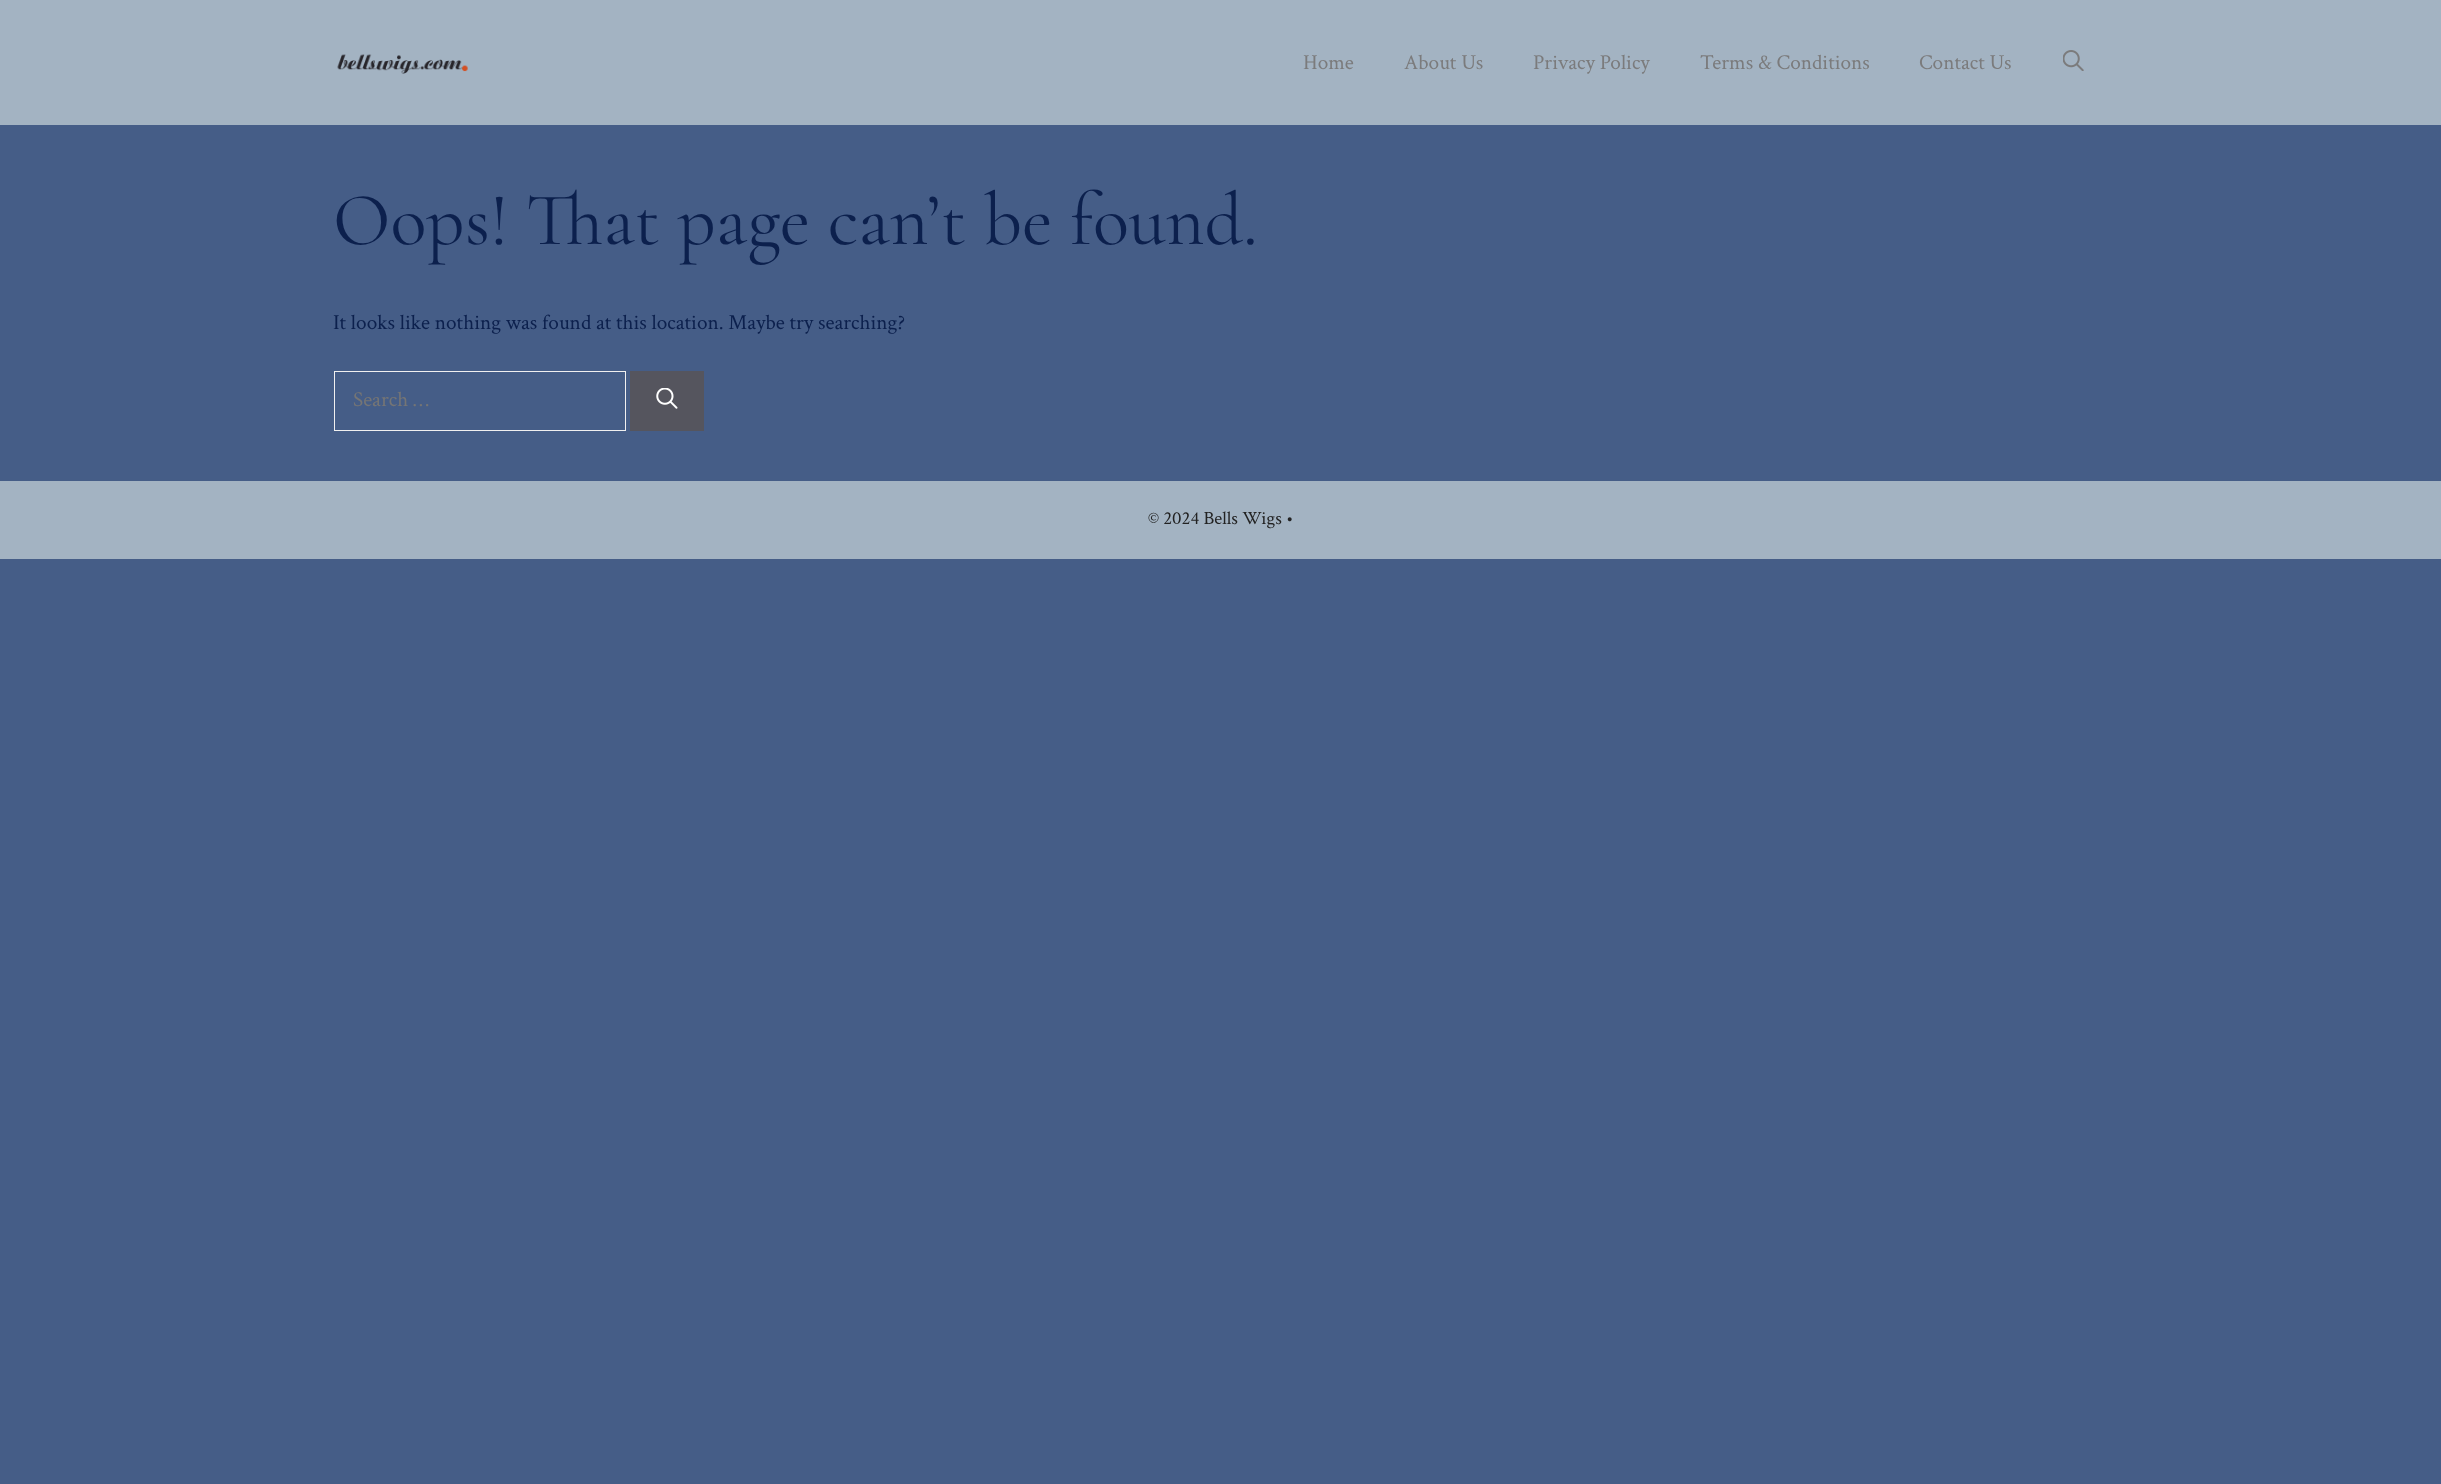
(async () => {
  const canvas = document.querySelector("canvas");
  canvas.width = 2441;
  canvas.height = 1484;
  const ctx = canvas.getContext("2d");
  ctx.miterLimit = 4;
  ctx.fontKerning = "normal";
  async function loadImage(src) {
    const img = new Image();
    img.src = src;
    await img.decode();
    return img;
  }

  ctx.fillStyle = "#455d87";
  ctx.fillRect(0, 0, 2441, 1484);
  ctx.fillStyle = "#a3b3c2";
  ctx.fillRect(0, 0, 2441, 125);
  ctx.drawImage(await loadImage("img/1.png"), 337, 54, 131, 20);
  ctx.drawImage(await loadImage("img/2.png"), 2063, 50, 21, 21);
  ctx.strokeStyle = "#f0f0f0";
  ctx.strokeRect(334.5, 371.5, 291, 59);
  ctx.fillStyle = "#55555e";
  ctx.fillRect(630, 371, 74, 60);
  ctx.drawImage(await loadImage("img/3.png"), 656, 388, 22, 21);
  ctx.fillStyle = "#a3b3c2";
  ctx.fillRect(0, 481, 2441, 78);
  ctx.font = "21.25px Crimson Text";
  ctx.fillStyle = "#7b7b7c";
  for (const [text, x, y] of [
    ["Home", 1303, 69],
    ["About Us", 1404, 69],
    ["Privacy Policy", 1533, 69],
    ["Terms & Conditions", 1700, 69],
    ["Contact Us", 1919, 69],
  ]) {
    ctx.fillText(text, x, y);
  }
  ctx.font = "75px Cormorant Garamond";
  ctx.fillStyle = "#0c204d";
  ctx.fillText("Oops! That page can’t be found.", 333, 244);
  ctx.font = "21.25px Crimson Text";
  ctx.fillText("It looks like nothing was found at this location. Maybe try searching?", 333, 329);
  ctx.fillStyle = "#757575";
  ctx.fillText("Search …", 353, 406);
  ctx.font = "18.75px Crimson Text";
  ctx.fillStyle = "#222222";
  ctx.fillText("© 2024 Bells Wigs •", 1148, 524);
})();
